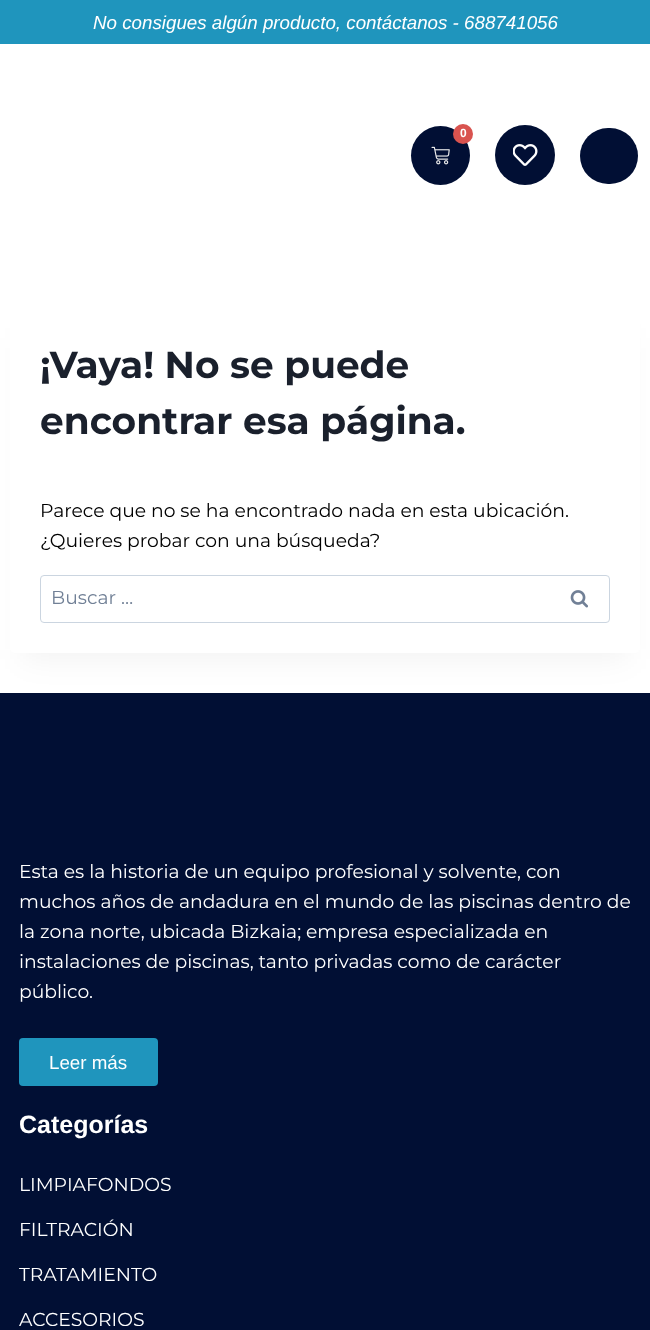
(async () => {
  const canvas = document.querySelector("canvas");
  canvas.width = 650;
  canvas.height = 1330;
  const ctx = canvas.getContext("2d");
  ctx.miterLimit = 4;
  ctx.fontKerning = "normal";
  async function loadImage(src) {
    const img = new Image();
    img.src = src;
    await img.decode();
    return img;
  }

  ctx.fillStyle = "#ffffff";
  ctx.fillRect(0, 0, 650, 1330);
  ctx.fillStyle = "#1f95bd";
  ctx.fillRect(0, 0, 650, 44);
  ctx.fillStyle = "#010f34";
  ctx.beginPath();
  ctx.arc(440.5, 155.5, 29.5, 0, Math.PI * 2);
  ctx.fill();
  ctx.fillStyle = "#d9534f";
  ctx.beginPath();
  ctx.arc(463, 134, 10, 0, Math.PI * 2);
  ctx.fill();
  ctx.drawImage(await loadImage("img/1.png"), 431, 146, 19, 19);
  ctx.fillStyle = "#010f34";
  ctx.beginPath();
  ctx.arc(525, 155, 30, 0, Math.PI * 2);
  ctx.fill();
  ctx.drawImage(await loadImage("img/2.png"), 513, 144, 25, 22);
  ctx.beginPath();
  ctx.roundRect(580, 128, 58, 56, 28);
  ctx.fill();
  ctx.fillStyle = "rgba(0, 0, 0, 0.05)";
  ctx.filter = "blur(15.5px)";
  ctx.beginPath();
  ctx.rect(23, 338, 605, 321);
  ctx.fill();
  ctx.filter = "none";
  ctx.fillStyle = "#ffffff";
  ctx.beginPath();
  ctx.roundRect(10, 306, 630, 347, 5);
  ctx.fill();
  ctx.beginPath();
  ctx.roundRect(40.5, 575.5, 569, 47, 3.5);
  ctx.strokeStyle = "#cbd5e0";
  ctx.stroke();
  ctx.drawImage(await loadImage("img/3.png"), 570, 590, 18, 18);
  ctx.fillStyle = "#010f34";
  ctx.fillRect(0, 693, 650, 637);
  ctx.fillStyle = "#1f95bd";
  ctx.beginPath();
  ctx.roundRect(19, 1038, 139, 48, 4);
  ctx.fill();
  ctx.font = "italic 18.75px Liberation Sans";
  ctx.fillStyle = "#ffffff";
  ctx.fillText("No consigues algún producto, contáctanos - 688741056", 93, 29);
  ctx.font = "bold 12px Liberation Sans";
  ctx.fillText("0", 460, 137);
  ctx.font = "bold 37.5px Montserrat";
  ctx.fillStyle = "#1a202c";
  ctx.fillText("¡Vaya! No se puede", 40, 378);
  ctx.fillText("encontrar esa página.", 40, 434);
  ctx.font = "18.75px Montserrat";
  ctx.fillStyle = "#000000";
  ctx.fillText("Parece que no se ha encontrado nada en esta ubicación.", 40, 517);
  ctx.fillText("¿Quieres probar con una búsqueda?", 40, 547);
  ctx.fillStyle = "#718096";
  ctx.fillText("Buscar …", 51, 604);
  ctx.fillStyle = "#ffffff";
  for (const [text, x, y] of [
    ["Esta es la historia de un equipo profesional y solvente, con", 19, 878],
    ["muchos años de andadura en el mundo de las piscinas dentro de", 19, 908],
    ["la zona norte, ubicada Bizkaia; empresa especializada en", 19, 938],
    ["instalaciones de piscinas, tanto privadas como de carácter", 19, 968],
    ["público.", 19, 998],
  ]) {
    ctx.fillText(text, x, y);
  }
  ctx.font = "18.75px Liberation Sans";
  ctx.fillText("Leer más", 49, 1069);
  ctx.font = "bold 25px Liberation Sans";
  ctx.fillText("Categorías", 19, 1133);
  ctx.font = "18.75px Montserrat";
  for (const [text, x, y] of [
    ["LIMPIAFONDOS", 19, 1191],
    ["FILTRACIÓN", 19, 1236],
    ["TRATAMIENTO", 19, 1281],
    ["ACCESORIOS", 19, 1326],
  ]) {
    ctx.fillText(text, x, y);
  }
})();
